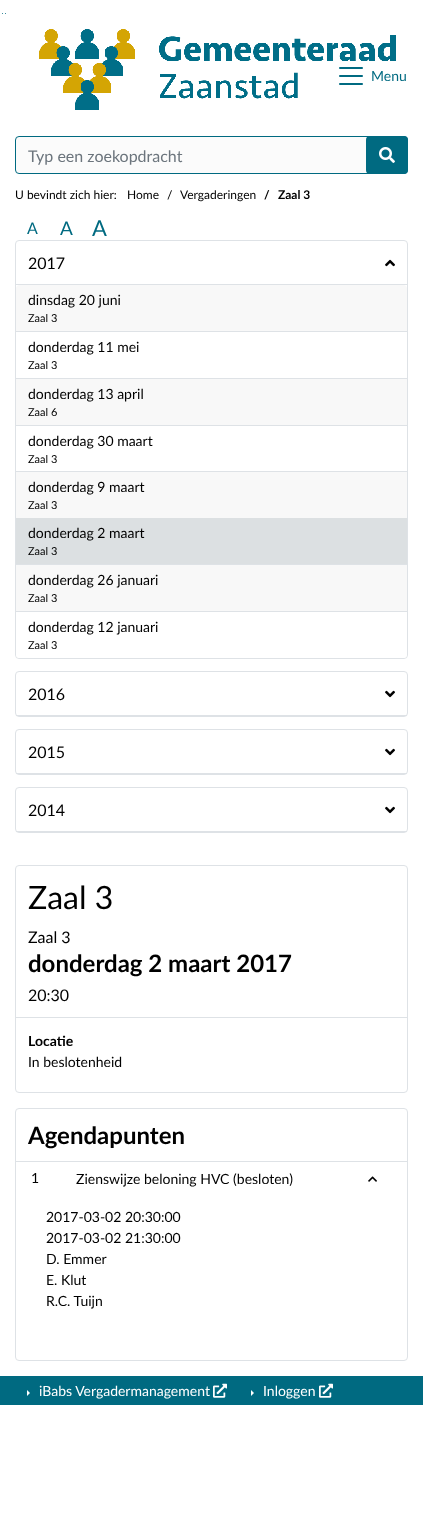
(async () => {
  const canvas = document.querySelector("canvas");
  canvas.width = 423;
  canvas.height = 1523;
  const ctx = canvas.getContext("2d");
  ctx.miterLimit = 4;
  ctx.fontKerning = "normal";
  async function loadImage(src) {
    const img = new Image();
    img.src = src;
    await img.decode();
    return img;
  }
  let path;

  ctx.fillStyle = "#ffffff";
  ctx.fillRect(0, 0, 423, 1523);
  ctx.fillStyle = "#006a81";
  ctx.beginPath();
  ctx.arc(2.5, 13.5, 0.5, 0, Math.PI * 2);
  ctx.fill();
  ctx.beginPath();
  ctx.arc(5.5, 13.5, 0.5, 0, Math.PI * 2);
  ctx.fill();
  ctx.drawImage(await loadImage("img/1.png"), 39, 29, 357, 81);
  ctx.drawImage(await loadImage("img/2.png"), 339, 67, 24, 18);
  ctx.fillStyle = "#fbfbfb";
  ctx.beginPath();
  ctx.roundRect(15.5, 136.5, 392, 37, 3.5);
  ctx.fill();
  ctx.strokeStyle = "#006a81";
  ctx.stroke();
  ctx.fillStyle = "#006a81";
  ctx.beginPath();
  ctx.roundRect(366, 136, 42, 38, 4);
  ctx.fill();
  ctx.drawImage(await loadImage("img/3.png"), 379, 147, 16, 16);
  ctx.beginPath();
  ctx.roundRect(15.5, 240.5, 392, 418, 3.5);
  ctx.strokeStyle = "#dee2e6";
  ctx.stroke();
  ctx.fillStyle = "#dee2e6";
  ctx.fillRect(16, 284, 391, 1);
  ctx.drawImage(await loadImage("img/4.png"), 385, 259, 10, 8);
  ctx.fillStyle = "#f8f8f8";
  ctx.beginPath();
  ctx.roundRect(16, 285, 391, 373, 4);
  ctx.fill();
  for (const [x, y, w, h, color] of [
    [16, 331, 391, 1, "#dee2e6"],
    [16, 332, 391, 46, "#ffffff"],
    [16, 378, 391, 1, "#dee2e6"],
    [16, 425, 391, 1, "#dee2e6"],
    [16, 426, 391, 45, "#ffffff"],
    [16, 471, 391, 1, "#dee2e6"],
    [16, 518, 391, 46, "#dce0e2"],
    [16, 564, 391, 1, "#dee2e6"],
    [16, 611, 391, 1, "#dee2e6"],
  ]) {
    ctx.fillStyle = color;
    ctx.fillRect(x, y, w, h);
  }
  ctx.fillStyle = "#ffffff";
  ctx.beginPath();
  ctx.roundRect(16, 612, 391, 46, [0, 0, 4, 4]);
  ctx.fill();
  ctx.beginPath();
  ctx.roundRect(15.5, 671.5, 392, 45, 3.5);
  ctx.stroke();
  ctx.fillStyle = "#dee2e6";
  ctx.fillRect(16, 715, 391, 1);
  ctx.drawImage(await loadImage("img/5.png"), 385, 690, 10, 8);
  ctx.beginPath();
  ctx.roundRect(15.5, 729.5, 392, 45, 3.5);
  ctx.stroke();
  ctx.fillRect(16, 773, 391, 1);
  ctx.drawImage(await loadImage("img/5.png"), 385, 748, 10, 8);
  ctx.beginPath();
  ctx.roundRect(15.5, 787.5, 392, 45, 3.5);
  ctx.stroke();
  ctx.fillRect(16, 831, 391, 1);
  ctx.drawImage(await loadImage("img/5.png"), 385, 806, 10, 8);
  ctx.beginPath();
  ctx.roundRect(15.5, 865.5, 392, 227, 3.5);
  ctx.stroke();
  ctx.fillRect(16, 1017, 391, 1);
  ctx.beginPath();
  ctx.roundRect(15.5, 1108.5, 392, 252, 3.5);
  ctx.stroke();
  ctx.fillRect(16, 1161, 391, 1);
  ctx.drawImage(await loadImage("img/6.png"), 368, 1176, 9, 6);
  ctx.fillStyle = "#006a81";
  ctx.fillRect(0, 1376, 423, 29);
  ctx.fillStyle = "#ffffff";
  path = new Path2D("M27 1396V1390L30 1393Z");
  ctx.fill(path);
  ctx.drawImage(await loadImage("img/7.png"), 213, 1383, 14, 15);
  path = new Path2D("M251 1396V1390L254 1393Z");
  ctx.fill(path);
  ctx.drawImage(await loadImage("img/7.png"), 319, 1383, 14, 15);
  ctx.font = "14px Lato";
  ctx.fillStyle = "#006a81";
  ctx.fillText("Menu", 371, 81);
  ctx.font = "16px Lato";
  ctx.fillStyle = "#6c757d";
  ctx.fillText("Typ een zoekopdracht", 28, 162);
  ctx.font = "12px Lato";
  ctx.fillStyle = "#000000";
  for (const [text, x, y] of [
    ["U bevindt zich hier:", 15, 199],
    ["Home", 127, 199],
    ["/", 167, 199],
    ["Vergaderingen", 180, 199],
  ]) {
    ctx.fillText(text, x, y);
  }
  ctx.font = "bold 12px Lato";
  ctx.fillText("/", 264, 199);
  ctx.fillText("Zaal 3", 278, 199);
  ctx.font = "16px Lato";
  ctx.fillStyle = "#006a81";
  ctx.fillText("A", 27, 234);
  ctx.font = "19px Lato";
  ctx.fillText("A", 60, 235);
  ctx.font = "22px Lato";
  ctx.fillText("A", 92, 236);
  ctx.font = "16px Lato";
  ctx.fillStyle = "#000000";
  ctx.fillText("2017", 28, 269);
  ctx.font = "14px Lato";
  ctx.fillText("dinsdag 20 juni", 28, 305);
  ctx.font = "11px Lato";
  ctx.fillText("Zaal 3", 28, 322);
  ctx.font = "14px Lato";
  ctx.fillText("donderdag 11 mei", 28, 352);
  ctx.font = "11px Lato";
  ctx.fillText("Zaal 3", 28, 369);
  ctx.font = "14px Lato";
  ctx.fillText("donderdag 13 april", 28, 399);
  ctx.font = "11px Lato";
  ctx.fillText("Zaal 6", 28, 416);
  ctx.font = "14px Lato";
  ctx.fillText("donderdag 30 maart", 28, 446);
  ctx.font = "11px Lato";
  ctx.fillText("Zaal 3", 28, 463);
  ctx.font = "14px Lato";
  ctx.fillText("donderdag 9 maart", 28, 492);
  ctx.font = "11px Lato";
  ctx.fillText("Zaal 3", 28, 509);
  ctx.font = "14px Lato";
  ctx.fillText("donderdag 2 maart", 28, 538);
  ctx.font = "11px Lato";
  ctx.fillText("Zaal 3", 28, 555);
  ctx.font = "14px Lato";
  ctx.fillText("donderdag 26 januari", 28, 585);
  ctx.font = "11px Lato";
  ctx.fillText("Zaal 3", 28, 602);
  ctx.font = "14px Lato";
  ctx.fillText("donderdag 12 januari", 28, 632);
  ctx.font = "11px Lato";
  ctx.fillText("Zaal 3", 28, 649);
  ctx.font = "16px Lato";
  for (const [text, x, y] of [
    ["2016", 28, 700],
    ["2015", 28, 758],
    ["2014", 28, 816],
  ]) {
    ctx.fillText(text, x, y);
  }
  ctx.font = "32px Lato";
  ctx.fillText("Zaal 3", 28, 909);
  ctx.font = "16px Lato";
  ctx.fillText("Zaal 3", 28, 943);
  ctx.font = "bold 24px Lato";
  ctx.fillText("donderdag 2 maart 2017", 28, 972);
  ctx.font = "16px Lato";
  ctx.fillText("20:30", 28, 1001);
  ctx.font = "bold 14px Lato";
  ctx.fillText("Locatie", 28, 1046);
  ctx.font = "14px Lato";
  ctx.fillText("In beslotenheid", 28, 1067);
  ctx.font = "bold 24px Lato";
  ctx.fillText("Agendapunten", 28, 1144);
  ctx.font = "14px Lato";
  for (const [text, x, y] of [
    ["1", 31, 1183],
    ["Zienswijze beloning HVC (besloten)", 76, 1184],
    ["2017-03-02 20:30:00", 46, 1222],
    ["2017-03-02 21:30:00", 46, 1243],
    ["D. Emmer", 46, 1264],
    ["E. Klut", 46, 1285],
    ["R.C. Tuijn", 46, 1306],
  ]) {
    ctx.fillText(text, x, y);
  }
  ctx.fillStyle = "#ffffff";
  ctx.fillText("iBabs Vergadermanagement", 39, 1396);
  ctx.fillText("Inloggen", 263, 1396);
})();
